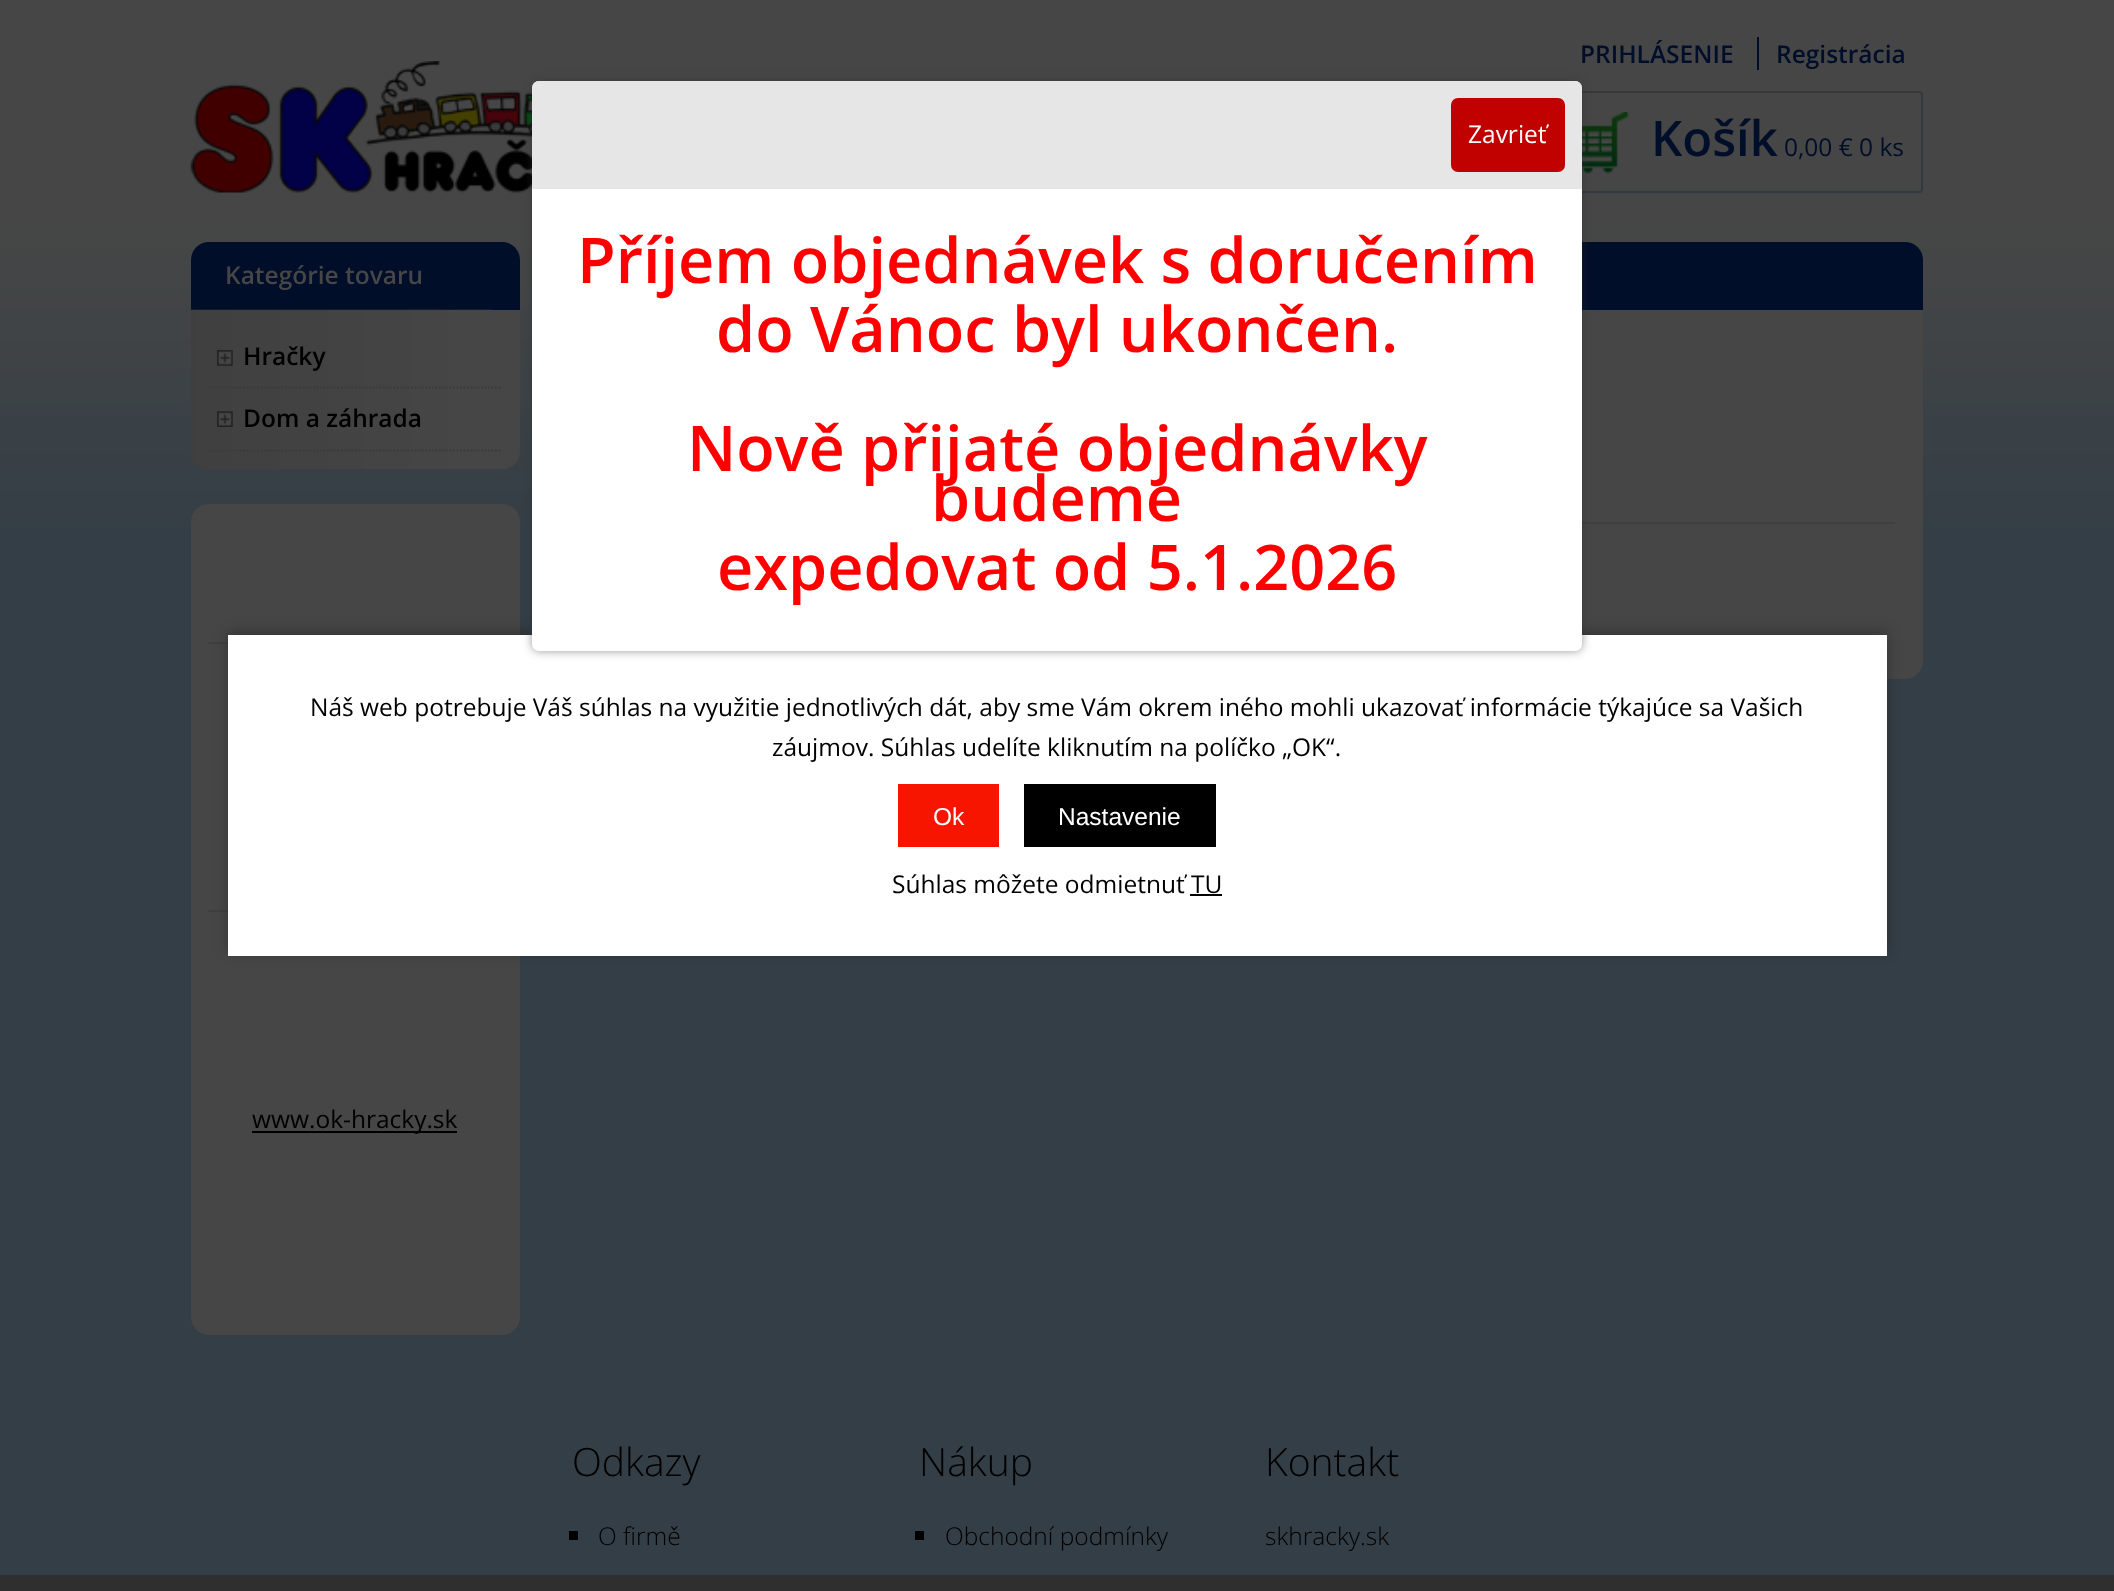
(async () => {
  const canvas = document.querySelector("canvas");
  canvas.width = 2114;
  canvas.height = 1591;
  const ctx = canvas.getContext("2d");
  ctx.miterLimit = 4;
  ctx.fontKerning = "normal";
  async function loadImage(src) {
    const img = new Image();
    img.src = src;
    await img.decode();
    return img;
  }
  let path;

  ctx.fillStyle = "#343e46";
  ctx.fillRect(0, 0, 2114, 1591);
  ctx.drawImage(await loadImage("img/1.png"), 0, 0, 2114, 529);
  ctx.drawImage(await loadImage("img/2.png"), 190, 61, 342, 132);
  ctx.fillStyle = "#000e2a";
  ctx.fillRect(1757, 37, 2, 33);
  ctx.drawImage(await loadImage("img/3.png"), 1582, 112, 48, 62);
  ctx.beginPath();
  ctx.roundRect(1538, 92, 384, 100, 3);
  ctx.strokeStyle = "#34393f";
  ctx.lineWidth = 2;
  ctx.stroke();
  ctx.beginPath();
  ctx.roundRect(191, 242, 329, 68, [18, 18, 0, 0]);
  ctx.fill();
  ctx.fillStyle = "#464646";
  ctx.beginPath();
  ctx.roundRect(191, 310, 329, 159, [0, 0, 18, 18]);
  ctx.fill();
  ctx.drawImage(await loadImage("img/4.png"), 191, 309, 301, 160);
  ctx.drawImage(await loadImage("img/5.png"), 217, 350, 16, 16);
  path = new Path2D("M208 387.5H502");
  ctx.strokeStyle = "#3b3b3b";
  ctx.lineWidth = 1.8;
  ctx.setLineDash([1.75, 1.75]);
  ctx.stroke(path);
  ctx.drawImage(await loadImage("img/6.png"), 217, 411, 16, 16);
  path = new Path2D("M208 450.5H502");
  ctx.stroke(path);
  ctx.beginPath();
  ctx.roundRect(191, 504, 329, 831, 18);
  ctx.fill();
  for (const [x, y, w, h, color] of [
    [208, 642, 20, 2, "#3f3f3f"],
    [208, 910, 20, 2, "#3f3f3f"],
    [252, 1131, 205, 2, "#000000"],
  ]) {
    ctx.fillStyle = color;
    ctx.fillRect(x, y, w, h);
  }
  ctx.fillStyle = "#464646";
  ctx.beginPath();
  ctx.roundRect(537, 242, 1386, 437, 18);
  ctx.fill();
  ctx.fillStyle = "#000e2a";
  ctx.beginPath();
  ctx.roundRect(537, 242, 1386, 68, [18, 18, 0, 0]);
  ctx.fill();
  ctx.fillStyle = "#3f3f3f";
  ctx.fillRect(1582, 522, 313, 2);
  ctx.fillStyle = "rgba(0, 0, 0, 0.25)";
  ctx.filter = "blur(7px)";
  ctx.beginPath();
  ctx.rect(228, 632, 1659, 320);
  ctx.fill();
  ctx.filter = "none";
  ctx.fillStyle = "#ffffff";
  ctx.fillRect(228, 635, 1659, 321);
  ctx.fillStyle = "rgba(50, 50, 50, 0.5)";
  ctx.filter = "blur(5px)";
  ctx.beginPath();
  ctx.roundRect(532, 81, 1050, 570, 7);
  ctx.fill();
  ctx.filter = "none";
  ctx.fillStyle = "#ffffff";
  ctx.beginPath();
  ctx.roundRect(532, 81, 1050, 570, 7);
  ctx.fill();
  ctx.fillStyle = "#e6e6e6";
  ctx.beginPath();
  ctx.roundRect(532, 81, 1050, 108, [7, 7, 0, 0]);
  ctx.fill();
  ctx.fillStyle = "#c10000";
  ctx.beginPath();
  ctx.roundRect(1451, 98, 114, 74, 7);
  ctx.fill();
  for (const [x, y, w, h, color] of [
    [0, 1575, 2114, 16, "#2f2f2f"],
    [898, 784, 101, 63, "#f71500"],
    [1024, 784, 192, 63, "#000000"],
    [1190, 894, 32, 2, "#000000"],
    [569, 1531, 9, 9, "#000000"],
    [915, 1531, 9, 9, "#000000"],
  ]) {
    ctx.fillStyle = color;
    ctx.fillRect(x, y, w, h);
  }
  ctx.font = "600 24.5px Open Sans";
  ctx.fillStyle = "#000e2a";
  ctx.fillText("PRIHLÁSENIE", 1580, 63);
  ctx.fillText("Registrácia", 1776, 63);
  ctx.font = "600 49px Open Sans";
  ctx.fillText("Košík", 1651, 156);
  ctx.font = "24.5px Open Sans";
  ctx.fillText("0,00 € 0 ks", 1784, 156);
  ctx.font = "600 24.5px Open Sans";
  ctx.fillStyle = "#464646";
  ctx.fillText("Kategórie tovaru", 225, 284);
  ctx.fillStyle = "#000000";
  ctx.fillText("Hračky", 243, 365);
  ctx.fillText("Dom a záhrada", 243, 427);
  ctx.font = "24.5px Open Sans";
  ctx.fillText("www.ok-hracky.sk", 252, 1128);
  ctx.fillStyle = "#ffffff";
  ctx.fillText("Zavrieť", 1468, 143);
  ctx.font = "600 63px Open Sans";
  ctx.fillStyle = "#ff0000";
  for (const [text, x, y] of [
    ["Příjem objednávek s doručením", 577, 283],
    ["do Vánoc byl ukončen.", 716, 352],
    ["Nově přijaté objednávky", 687, 471],
    ["budeme", 931, 521],
    ["expedovat od 5.1.2026", 717, 590],
  ]) {
    ctx.fillText(text, x, y);
  }
  ctx.font = "24.5px Open Sans";
  ctx.fillStyle = "#000000";
  ctx.fillText("Náš web potrebuje Váš súhlas na využitie jednotlivých dát, aby sme Vám okrem iného mohli ukazovať informácie týkajúce sa Vašich", 310, 716);
  ctx.fillText("záujmov. Súhlas udelíte kliknutím na políčko „OK“.", 772, 756);
  ctx.font = "24.5px Liberation Sans";
  ctx.fillStyle = "#ffffff";
  ctx.fillText("Ok", 933, 825);
  ctx.fillText("Nastavenie", 1058, 825);
  ctx.font = "24.5px Open Sans";
  ctx.fillStyle = "#000000";
  ctx.fillText("Súhlas môžete odmietnuť TU", 892, 893);
  ctx.font = "300 39px Open Sans";
  ctx.fillText("Odkazy", 572, 1476);
  ctx.font = "300 24.5px Open Sans";
  ctx.fillText("O firmě", 598, 1545);
  ctx.font = "300 39px Open Sans";
  ctx.fillText("Nákup", 919, 1476);
  ctx.font = "300 24.5px Open Sans";
  ctx.fillText("Obchodní podmínky", 945, 1545);
  ctx.font = "300 39px Open Sans";
  ctx.fillText("Kontakt", 1265, 1476);
  ctx.font = "300 24.5px Open Sans";
  ctx.fillText("skhracky.sk", 1265, 1545);
})();
